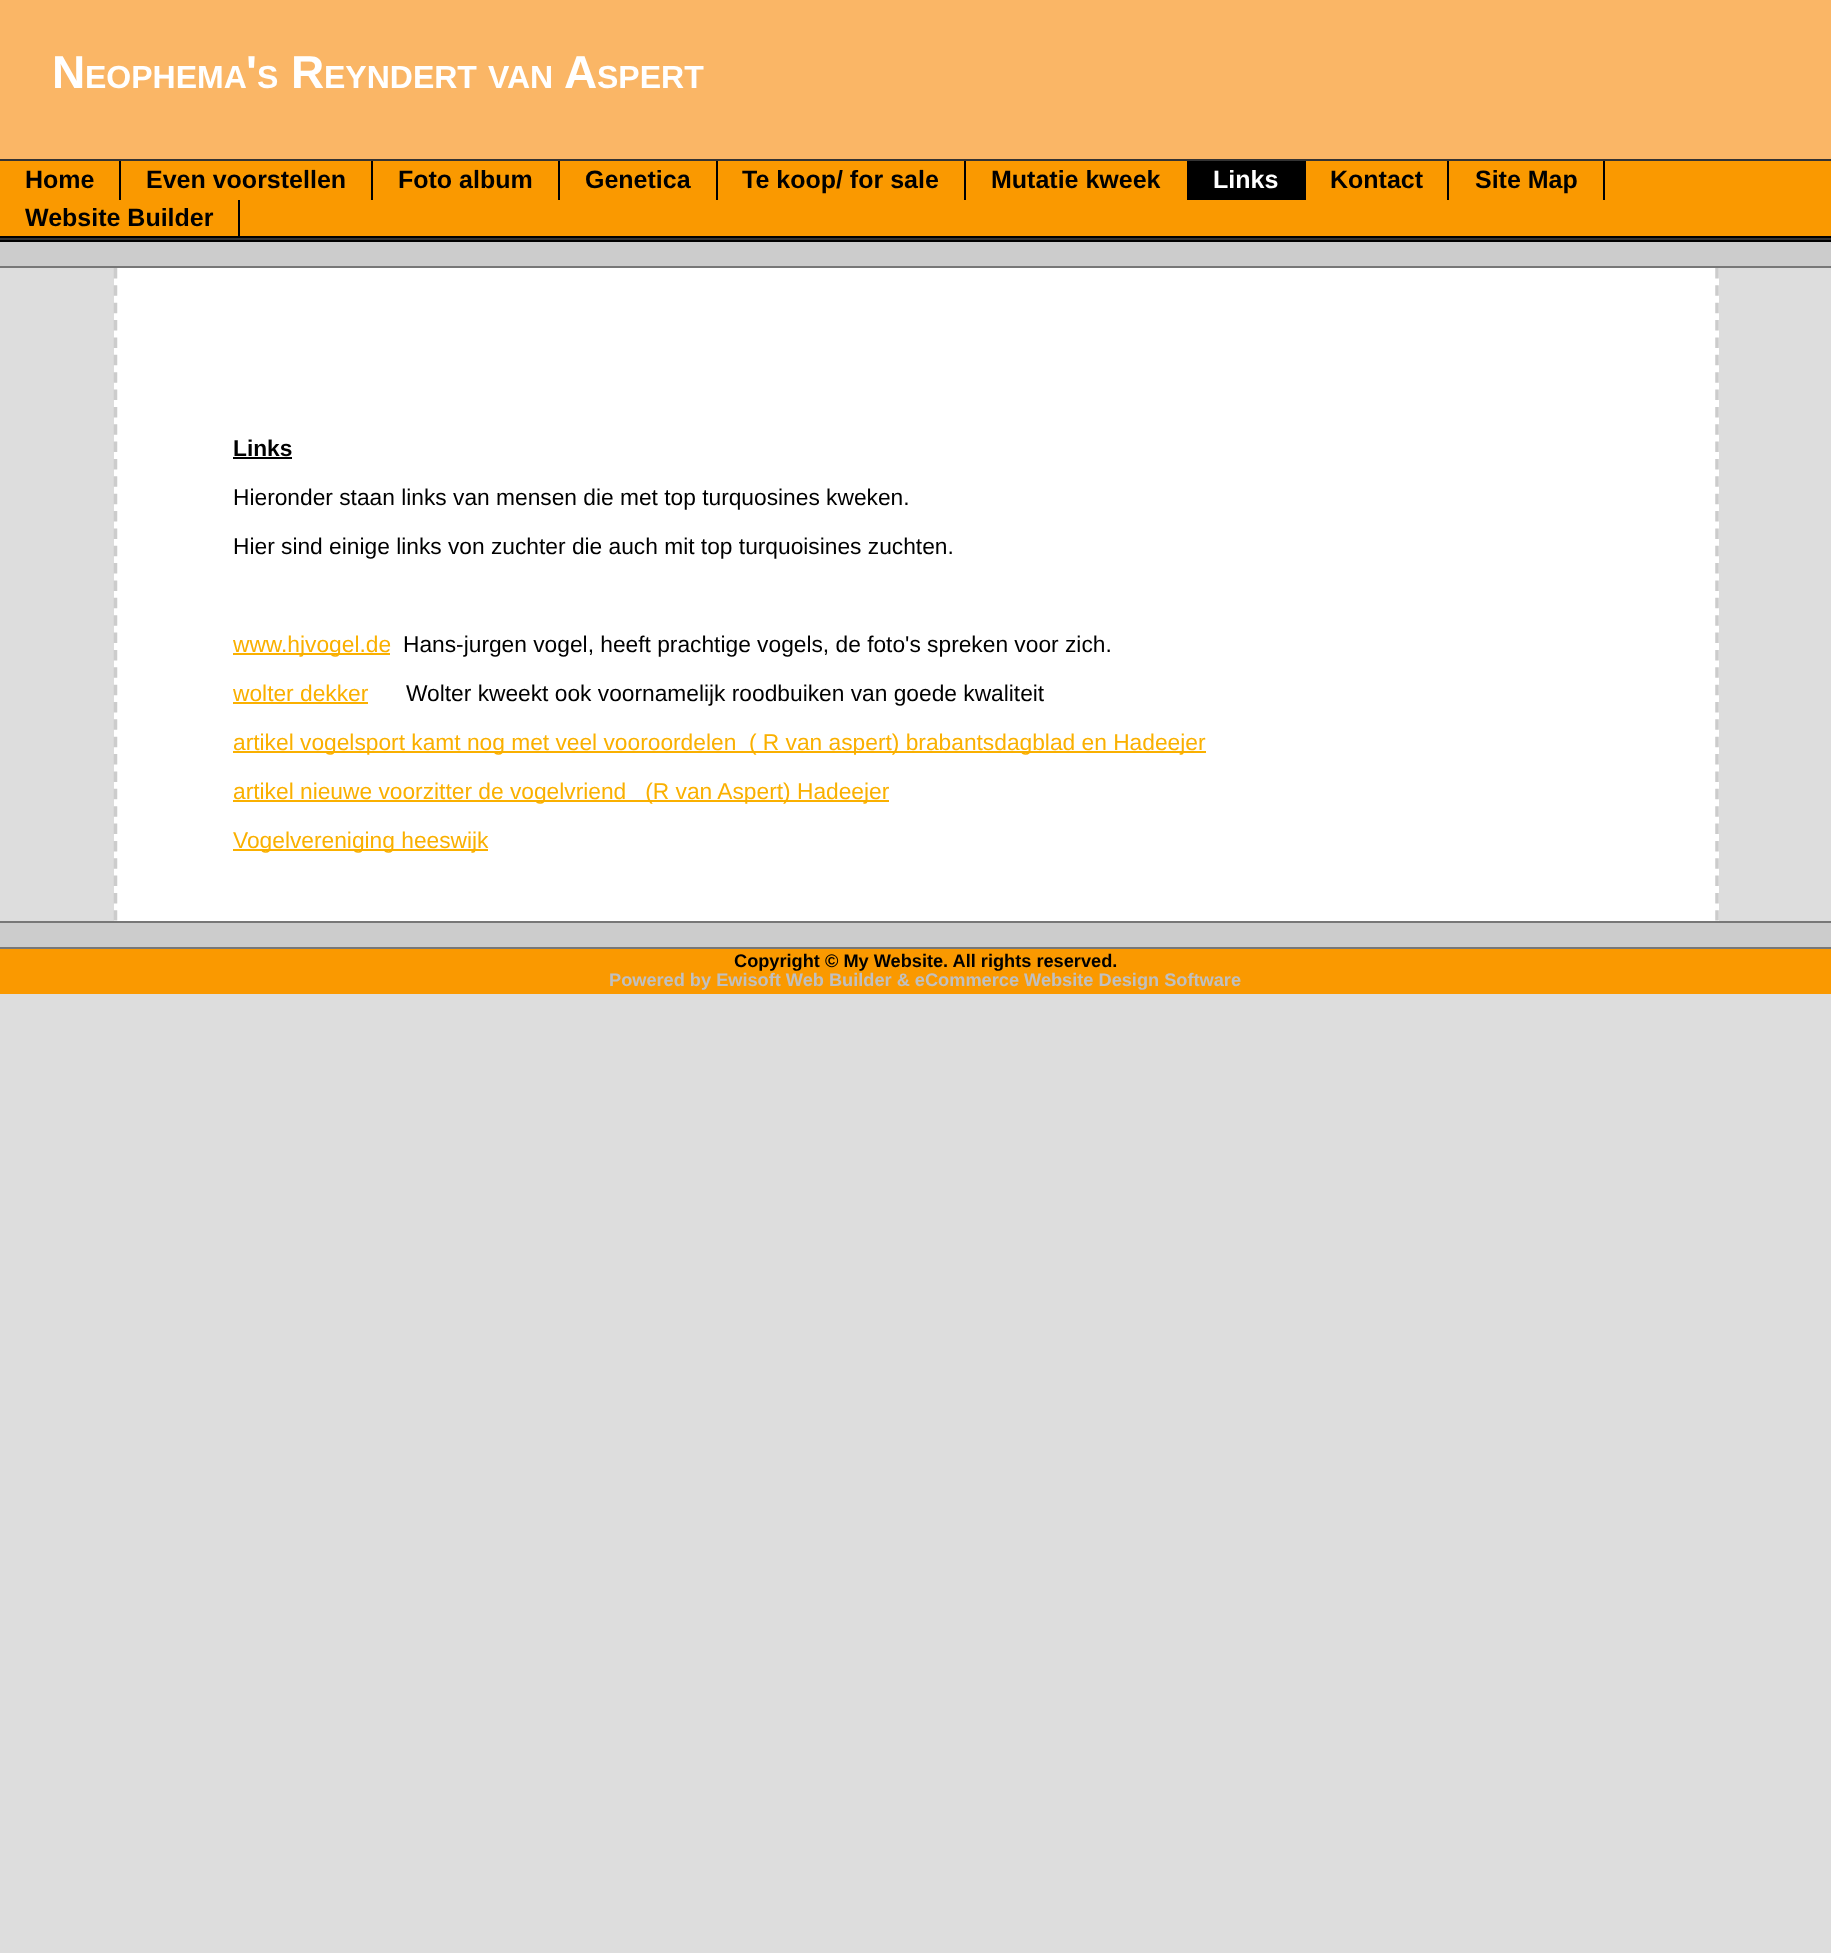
(async () => {
  const canvas = document.querySelector("canvas");
  canvas.width = 1831;
  canvas.height = 1953;
  const ctx = canvas.getContext("2d");
  ctx.miterLimit = 4;
  ctx.fontKerning = "normal";
  let path;

  ctx.fillStyle = "#dddddd";
  ctx.fillRect(0, 0, 1831, 1953);
  for (const [x, y, w, h, color] of [
    [0, 0, 1831, 159, "#fab666"],
    [0, 161, 1831, 75, "#fa9900"],
    [0, 159, 1831, 2, "#333333"],
    [0, 236, 1831, 2, "#000000"],
    [119, 161, 2, 39, "#000000"],
    [371, 161, 2, 39, "#000000"],
    [558, 161, 2, 39, "#000000"],
    [716, 161, 2, 39, "#000000"],
    [964, 161, 2, 39, "#000000"],
    [1187, 161, 119, 39, "#000000"],
    [1447, 161, 2, 39, "#000000"],
    [1603, 161, 2, 39, "#000000"],
    [238, 200, 2, 36, "#000000"],
    [0, 238, 1831, 2, "#333333"],
    [0, 240, 1831, 2, "#000000"],
    [0, 242, 1831, 24, "#cccccc"],
    [0, 266, 1831, 2, "#777777"],
    [114, 268, 1605, 653, "#ffffff"],
  ]) {
    ctx.fillStyle = color;
    ctx.fillRect(x, y, w, h);
  }
  path = new Path2D("M1717 268V920.5");
  ctx.strokeStyle = "#cccccc";
  ctx.lineWidth = 3.5;
  ctx.setLineDash([10.5, 6.86]);
  ctx.stroke(path);
  path = new Path2D("M115.5 268V920.5");
  ctx.stroke(path);
  for (const [x, y, w, h, color] of [
    [233, 457, 59, 2, "#000000"],
    [233, 653, 157, 2, "#fab000"],
    [233, 702, 135, 2, "#fab000"],
    [233, 751, 973, 2, "#fab000"],
    [233, 800, 656, 2, "#fab000"],
    [233, 849, 255, 2, "#fab000"],
    [0, 923, 1831, 24, "#cccccc"],
    [0, 921, 1831, 2, "#777777"],
    [0, 949, 1831, 45, "#fa9900"],
    [0, 947, 1831, 2, "#777777"],
  ]) {
    ctx.fillStyle = color;
    ctx.fillRect(x, y, w, h);
  }
  ctx.font = "bold 46px Liberation Sans";
  ctx.fillStyle = "#ffffff";
  ctx.fillText("N", 52, 88);
  ctx.font = "bold 32px Liberation Sans";
  ctx.fillText("EOPHEMA", 85, 88);
  ctx.font = "bold 46px Liberation Sans";
  ctx.fillText("'", 246, 88);
  ctx.font = "bold 32px Liberation Sans";
  ctx.fillText("S", 257, 88);
  ctx.font = "bold 46px Liberation Sans";
  ctx.fillText("R", 291, 88);
  ctx.font = "bold 32px Liberation Sans";
  ctx.fillText("EYNDERT", 324, 88);
  ctx.fillText("VAN", 488, 88);
  ctx.font = "bold 46px Liberation Sans";
  ctx.fillText("A", 564, 88);
  ctx.font = "bold 32px Liberation Sans";
  ctx.fillText("SPERT", 597, 88);
  ctx.font = "bold 25px Liberation Sans";
  ctx.fillStyle = "#000000";
  for (const [text, x, y] of [
    ["Home", 25, 188],
    ["Even voorstellen", 146, 188],
    ["Foto album", 398, 188],
    ["Genetica", 585, 188],
    ["Te koop/ for sale", 742, 188],
    ["Mutatie kweek", 991, 188],
  ]) {
    ctx.fillText(text, x, y);
  }
  ctx.fillStyle = "#ffffff";
  ctx.fillText("Links", 1213, 188);
  ctx.fillStyle = "#000000";
  for (const [text, x, y] of [
    ["Kontact", 1330, 188],
    ["Site Map", 1475, 188],
    ["Website Builder", 25, 226],
  ]) {
    ctx.fillText(text, x, y);
  }
  ctx.font = "bold 22.75px Liberation Sans";
  ctx.fillText("Links", 233, 456);
  ctx.font = "22.75px Liberation Sans";
  ctx.fillText("Hieronder staan links van mensen die met top turquosines kweken.", 233, 505);
  ctx.fillText("Hier sind einige links von zuchter die auch mit top turquoisines zuchten.", 233, 554);
  ctx.fillStyle = "#fab000";
  ctx.fillText("www.hjvogel.de", 233, 652);
  ctx.fillStyle = "#000000";
  ctx.fillText("Hans-jurgen vogel, heeft prachtige vogels, de foto's spreken voor zich.", 403, 652);
  ctx.fillStyle = "#fab000";
  ctx.fillText("wolter dekker", 233, 701);
  ctx.fillStyle = "#000000";
  ctx.fillText("Wolter kweekt ook voornamelijk roodbuiken van goede kwaliteit", 406, 701);
  ctx.fillStyle = "#fab000";
  for (const [text, x, y] of [
    ["artikel vogelsport kamt nog met veel vooroordelen  ( R van aspert) brabantsdagblad en Hadeejer", 233, 750],
    ["artikel nieuwe voorzitter de vogelvriend   (R van Aspert) Hadeejer", 233, 799],
    ["Vogelvereniging heeswijk", 233, 848],
  ]) {
    ctx.fillText(text, x, y);
  }
  ctx.font = "bold 18.2px Liberation Sans";
  ctx.fillStyle = "#000000";
  ctx.fillText("Copyright © My Website. All rights reserved.", 734, 967);
  ctx.fillStyle = "#c0c0c0";
  ctx.fillText("Powered by Ewisoft Web Builder & eCommerce Website Design Software", 609, 986);
})();
